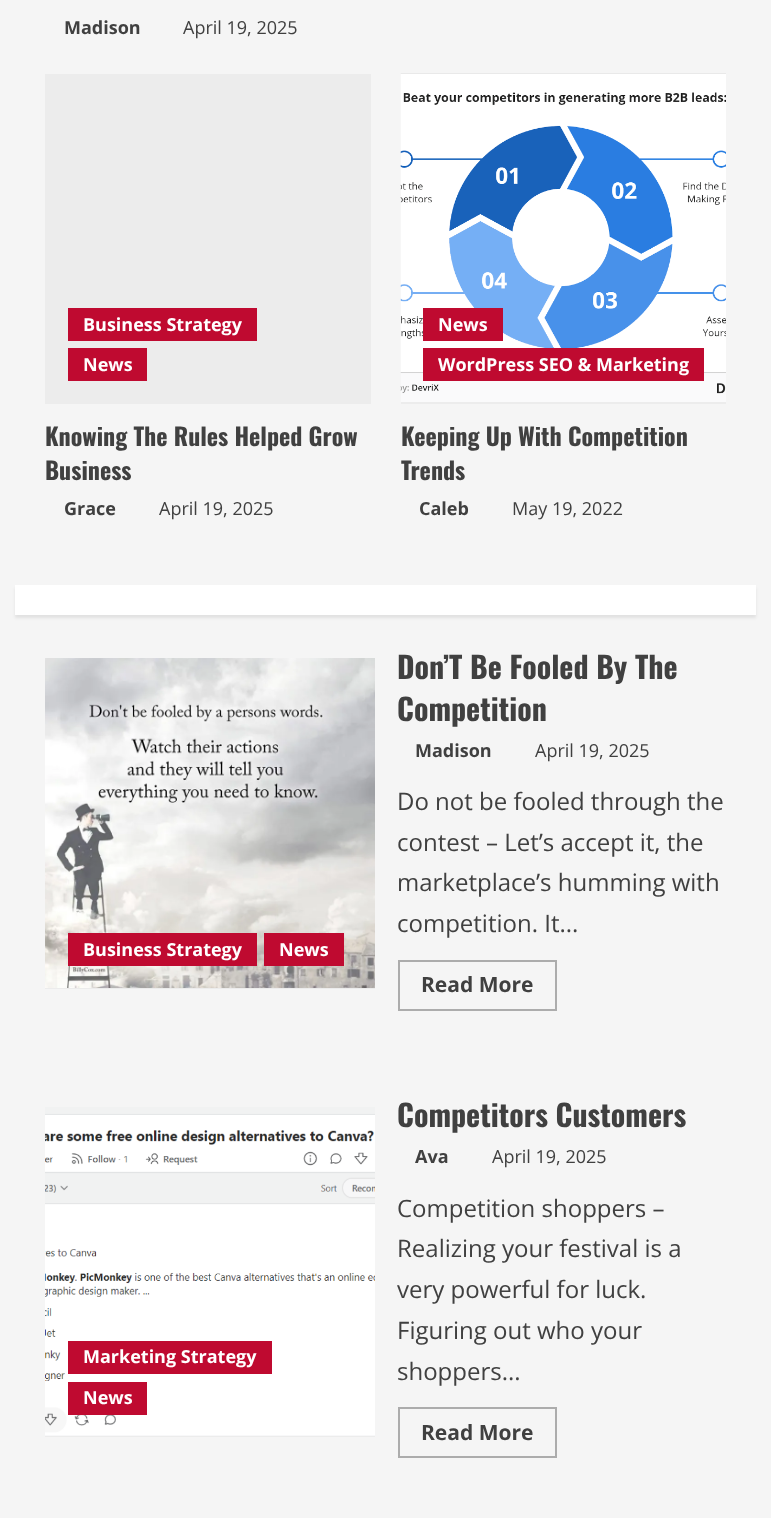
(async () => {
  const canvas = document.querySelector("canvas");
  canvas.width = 771;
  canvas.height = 1518;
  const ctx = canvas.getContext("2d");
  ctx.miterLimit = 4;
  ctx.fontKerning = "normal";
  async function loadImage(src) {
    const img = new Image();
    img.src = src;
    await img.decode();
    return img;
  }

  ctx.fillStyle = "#f5f5f5";
  ctx.fillRect(0, 0, 771, 1518);
  for (const [x, y, w, h, color] of [
    [45, 74, 326, 330, "#ececec"],
    [68, 308, 189, 33, "#bf0a30"],
    [68, 348, 79, 33, "#bf0a30"],
    [401, 402, 325, 2, "#ececec"],
  ]) {
    ctx.fillStyle = color;
    ctx.fillRect(x, y, w, h);
  }
  ctx.drawImage(await loadImage("img/1.png"), 400, 73, 326, 329);
  ctx.fillStyle = "#bf0a30";
  ctx.fillRect(423, 308, 80, 33);
  ctx.fillRect(423, 348, 281, 33);
  ctx.fillStyle = "rgba(0, 0, 0, 0.08)";
  ctx.filter = "blur(1.5px)";
  ctx.beginPath();
  ctx.rect(15, 588, 741, 30);
  ctx.fill();
  ctx.filter = "none";
  ctx.fillStyle = "#ffffff";
  ctx.fillRect(15, 585, 741, 30);
  ctx.fillStyle = "#ececec";
  ctx.fillRect(45, 988, 330, 1);
  ctx.drawImage(await loadImage("img/2.png"), 45, 658, 330, 330);
  ctx.fillStyle = "#bf0a30";
  ctx.fillRect(68, 933, 189, 33);
  ctx.fillRect(264, 933, 80, 33);
  ctx.strokeStyle = "#acacac";
  ctx.lineWidth = 2;
  ctx.strokeRect(399, 961, 157, 49);
  ctx.fillStyle = "#ececec";
  ctx.fillRect(45, 1436, 330, 1);
  ctx.drawImage(await loadImage("img/3.png"), 45, 1107, 330, 329);
  ctx.fillStyle = "#bf0a30";
  ctx.fillRect(68, 1341, 204, 33);
  ctx.fillRect(68, 1382, 79, 33);
  ctx.strokeRect(399, 1408, 157, 49);
  ctx.font = "bold 18px Open Sans";
  ctx.fillStyle = "#404040";
  ctx.fillText("Madison", 64, 34);
  ctx.font = "18px Open Sans";
  ctx.fillText("April 19, 2025", 183, 34);
  ctx.font = "bold 18px Open Sans";
  ctx.fillStyle = "#ffffff";
  ctx.fillText("Business Strategy", 83, 331);
  ctx.fillText("News", 83, 371);
  ctx.font = "bold 24px Oswald";
  ctx.fillStyle = "#404040";
  ctx.fillText("Knowing The Rules Helped Grow", 45, 446);
  ctx.fillText("Business", 45, 480);
  ctx.font = "bold 18px Open Sans";
  ctx.fillText("Grace", 64, 515);
  ctx.font = "18px Open Sans";
  ctx.fillText("April 19, 2025", 159, 515);
  ctx.font = "bold 18px Open Sans";
  ctx.fillStyle = "#ffffff";
  ctx.fillText("News", 438, 331);
  ctx.fillText("WordPress SEO & Marketing", 438, 371);
  ctx.font = "bold 24px Oswald";
  ctx.fillStyle = "#404040";
  ctx.fillText("Keeping Up With Competition", 401, 446);
  ctx.fillText("Trends", 401, 480);
  ctx.font = "bold 18px Open Sans";
  ctx.fillText("Caleb", 419, 515);
  ctx.font = "18px Open Sans";
  ctx.fillText("May 19, 2022", 512, 515);
  ctx.font = "bold 18px Open Sans";
  ctx.fillStyle = "#ffffff";
  ctx.fillText("Business Strategy", 83, 956);
  ctx.fillText("News", 279, 956);
  ctx.font = "bold 30px Oswald";
  ctx.fillStyle = "#404040";
  ctx.fillText("Don’T Be Fooled By The", 397, 679);
  ctx.fillText("Competition", 397, 721);
  ctx.font = "bold 18px Open Sans";
  ctx.fillText("Madison", 415, 757);
  ctx.font = "18px Open Sans";
  ctx.fillText("April 19, 2025", 535, 757);
  ctx.font = "24px Open Sans";
  for (const [text, x, y] of [
    ["Do not be fooled through the", 397, 810],
    ["contest – Let’s accept it, the", 397, 851],
    ["marketplace’s humming with", 397, 891],
    ["competition. It...", 397, 932],
  ]) {
    ctx.fillText(text, x, y);
  }
  ctx.font = "bold 21px Open Sans";
  ctx.fillText("Read More", 421, 992);
  ctx.font = "bold 18px Open Sans";
  ctx.fillStyle = "#ffffff";
  ctx.fillText("Marketing Strategy", 83, 1363);
  ctx.fillText("News", 83, 1404);
  ctx.font = "bold 30px Oswald";
  ctx.fillStyle = "#404040";
  ctx.fillText("Competitors Customers", 397, 1127);
  ctx.font = "bold 18px Open Sans";
  ctx.fillText("Ava", 415, 1163);
  ctx.font = "18px Open Sans";
  ctx.fillText("April 19, 2025", 492, 1163);
  ctx.font = "24px Open Sans";
  for (const [text, x, y] of [
    ["Competition shoppers –", 397, 1217],
    ["Realizing your festival is a", 397, 1257],
    ["very powerful for luck.", 397, 1298],
    ["Figuring out who your", 397, 1339],
    ["shoppers...", 397, 1380],
  ]) {
    ctx.fillText(text, x, y);
  }
  ctx.font = "bold 21px Open Sans";
  ctx.fillText("Read More", 421, 1440);
})();
